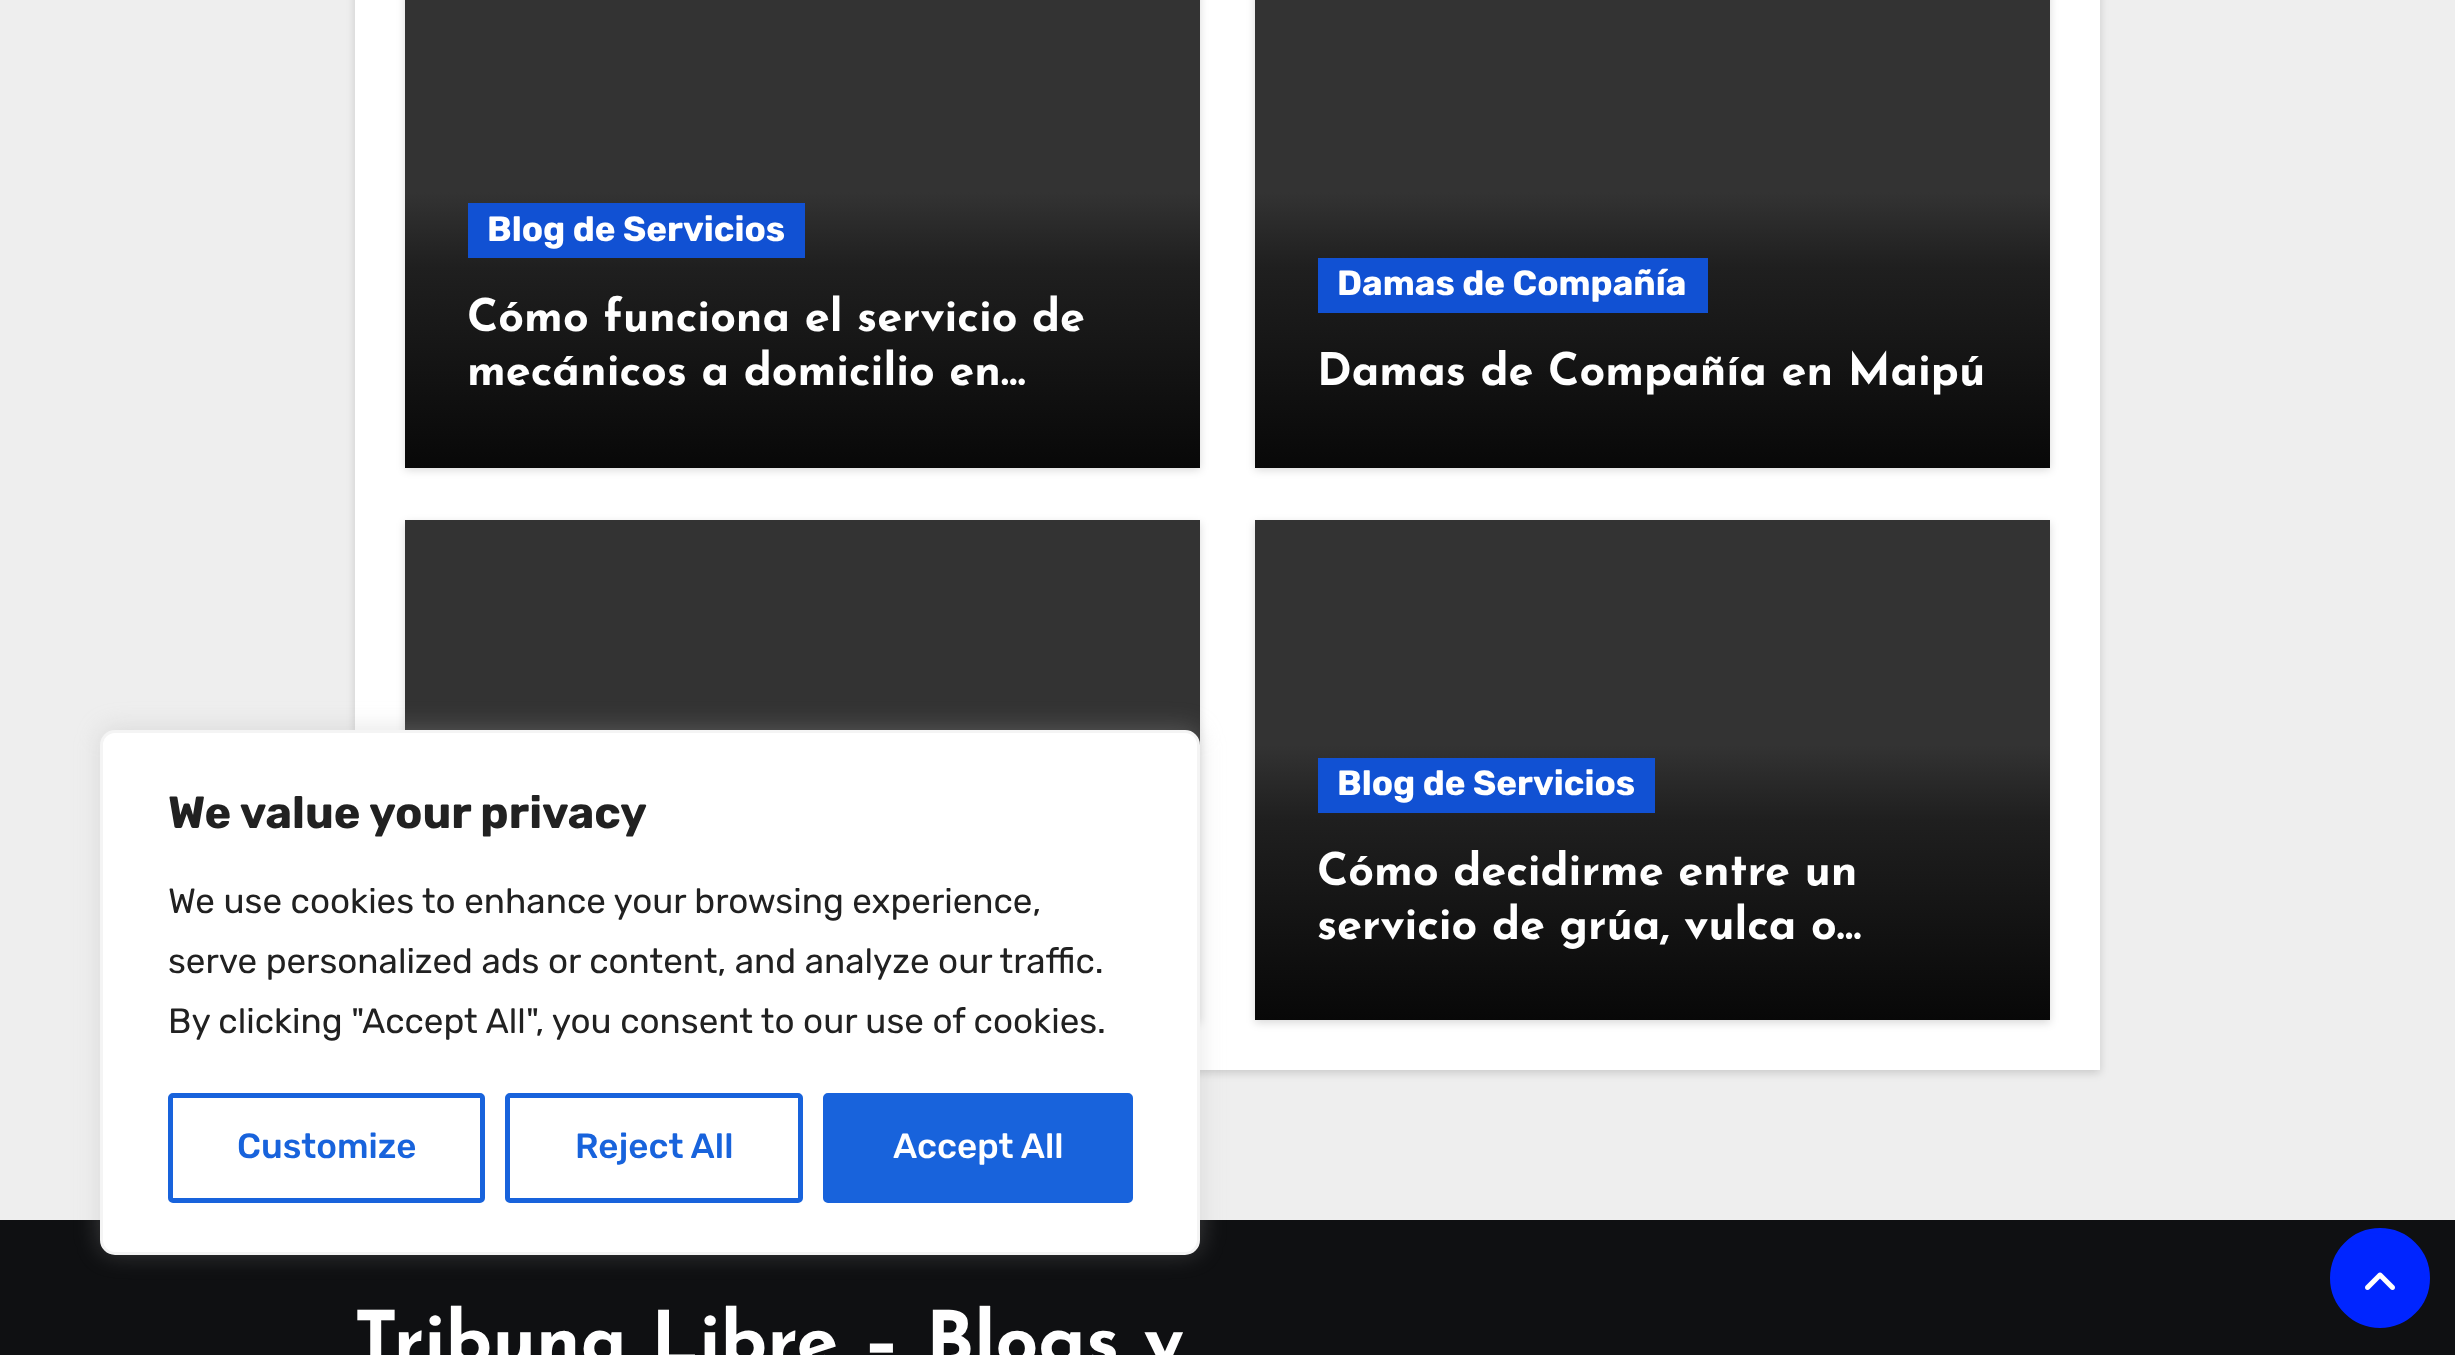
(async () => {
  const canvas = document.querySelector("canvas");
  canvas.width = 2455;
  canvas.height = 1355;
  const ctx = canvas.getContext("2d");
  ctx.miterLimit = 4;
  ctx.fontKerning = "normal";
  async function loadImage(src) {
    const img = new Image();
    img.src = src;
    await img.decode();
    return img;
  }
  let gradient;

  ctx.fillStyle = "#eeeeee";
  ctx.fillRect(0, 0, 2455, 1355);
  ctx.fillStyle = "rgba(0, 0, 0, 0.15)";
  ctx.filter = "blur(4px)";
  ctx.beginPath();
  ctx.rect(355, -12, 1745, 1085);
  ctx.fill();
  ctx.filter = "none";
  ctx.fillStyle = "#ffffff";
  ctx.fillRect(355, 0, 1745, 1070);
  ctx.fillStyle = "rgba(0, 0, 0, 0.15)";
  ctx.filter = "blur(4px)";
  ctx.beginPath();
  ctx.rect(405, -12, 795, 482);
  ctx.fill();
  ctx.filter = "none";
  gradient = ctx.createLinearGradient(803, -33, 803, 468);
  gradient.addColorStop(0, "#333333");
  gradient.addColorStop(0.45, "#333333");
  gradient.addColorStop(0.6, "#1f1f1f");
  gradient.addColorStop(1, "#080808");
  ctx.fillStyle = gradient;
  ctx.fillRect(405, 0, 795, 468);
  ctx.fillStyle = "#1151d3";
  ctx.fillRect(468, 203, 337, 55);
  ctx.fillStyle = "rgba(0, 0, 0, 0.15)";
  ctx.filter = "blur(4px)";
  ctx.beginPath();
  ctx.rect(1255, -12, 795, 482);
  ctx.fill();
  ctx.filter = "none";
  gradient = ctx.createLinearGradient(1653, -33, 1653, 468);
  gradient.addColorStop(0, "#333333");
  gradient.addColorStop(0.45, "#333333");
  gradient.addColorStop(0.6, "#1f1f1f");
  gradient.addColorStop(1, "#080808");
  ctx.fillStyle = gradient;
  ctx.fillRect(1255, 0, 795, 468);
  ctx.fillStyle = "#1151d3";
  ctx.fillRect(1318, 258, 390, 55);
  ctx.fillStyle = "rgba(0, 0, 0, 0.15)";
  ctx.filter = "blur(4px)";
  ctx.beginPath();
  ctx.rect(405, 523, 795, 500);
  ctx.fill();
  ctx.filter = "none";
  gradient = ctx.createLinearGradient(803, 520, 803, 1020);
  gradient.addColorStop(0, "#333333");
  gradient.addColorStop(0.45, "#333333");
  gradient.addColorStop(0.6, "#1f1f1f");
  gradient.addColorStop(1, "#080808");
  ctx.fillStyle = gradient;
  ctx.fillRect(405, 520, 795, 225);
  ctx.fillStyle = "rgba(0, 0, 0, 0.15)";
  ctx.filter = "blur(4px)";
  ctx.beginPath();
  ctx.rect(1255, 523, 795, 500);
  ctx.fill();
  ctx.filter = "none";
  gradient = ctx.createLinearGradient(1653, 520, 1653, 1020);
  gradient.addColorStop(0, "#333333");
  gradient.addColorStop(0.45, "#333333");
  gradient.addColorStop(0.6, "#1f1f1f");
  gradient.addColorStop(1, "#080808");
  ctx.fillStyle = gradient;
  ctx.fillRect(1255, 520, 795, 500);
  ctx.fillStyle = "#1151d3";
  ctx.fillRect(1318, 758, 337, 55);
  ctx.fillStyle = "#0f1012";
  ctx.fillRect(0, 1220, 2455, 135);
  ctx.fillStyle = "rgba(172, 171, 171, 0.3)";
  ctx.filter = "blur(12.5px)";
  ctx.beginPath();
  ctx.roundRect(100, 728, 1100, 525, 15);
  ctx.fill();
  ctx.filter = "none";
  ctx.fillStyle = "#ffffff";
  ctx.beginPath();
  ctx.roundRect(101.5, 731.5, 1097, 522, 13.5);
  ctx.fill();
  ctx.strokeStyle = "#f4f4f4";
  ctx.lineWidth = 3;
  ctx.stroke();
  ctx.beginPath();
  ctx.roundRect(170.5, 1095.5, 312, 105, 2.5);
  ctx.strokeStyle = "#1863dc";
  ctx.lineWidth = 5;
  ctx.stroke();
  ctx.beginPath();
  ctx.roundRect(507.5, 1095.5, 293, 105, 2.5);
  ctx.stroke();
  ctx.fillStyle = "#1863dc";
  ctx.beginPath();
  ctx.roundRect(825.5, 1095.5, 305, 105, 2.5);
  ctx.fill();
  ctx.stroke();
  ctx.fillStyle = "#0025ff";
  ctx.beginPath();
  ctx.arc(2380, 1278, 47.5, 0, Math.PI * 2);
  ctx.fill();
  ctx.strokeStyle = "#0025ff";
  ctx.stroke();
  ctx.drawImage(await loadImage("img/1.png"), 2365, 1272, 30, 18);
  ctx.font = "bold 35px Rubik";
  ctx.fillStyle = "#ffffff";
  ctx.fillText("Blog de Servicios", 487, 241);
  ctx.font = "bold 45px Josefin Sans";
  ctx.fillText("Cómo funciona el servicio de", 467, 331);
  ctx.fillText("mecánicos a domicilio en…", 467, 385);
  ctx.font = "bold 35px Rubik";
  ctx.fillText("Damas de Compañía", 1337, 295);
  ctx.save();
  ctx.beginPath();
  ctx.rect(1318, 350, 670, 55);
  ctx.clip();
  ctx.font = "bold 45px Josefin Sans";
  ctx.fillText("Damas de Compañía en Maipú", 1317, 385);
  ctx.restore();
  ctx.fillText("Blog de Servicios", 1337, 795);
  ctx.save();
  ctx.beginPath();
  ctx.rect(1318, 850, 670, 108);
  ctx.clip();
  ctx.font = "bold 45px Josefin Sans";
  ctx.fillText("Cómo decidirme entre un", 1317, 885);
  ctx.restore();
  ctx.font = "bold 45px Josefin Sans";
  ctx.fillText("servicio de grúa, vulca o…", 1317, 939);
  ctx.font = "bold 75px Josefin Sans";
  ctx.fillText("Tribuna Libre – Blogs y", 354, 1365);
  ctx.font = "bold 45px Rubik";
  ctx.fillStyle = "#212121";
  ctx.fillText("We value your privacy", 168, 828);
  ctx.font = "300 35px Rubik";
  for (const [text, x, y] of [
    ["We use cookies to enhance your browsing experience,", 168, 913],
    ["serve personalized ads or content, and analyze our traffic.", 168, 973],
    ["By clicking \"Accept All\", you consent to our use of cookies.", 168, 1033],
  ]) {
    ctx.fillText(text, x, y);
  }
  ctx.font = "500 35px Rubik";
  ctx.fillStyle = "#1863dc";
  ctx.fillText("Customize", 237, 1158);
  ctx.fillText("Reject All", 575, 1158);
  ctx.fillStyle = "#ffffff";
  ctx.fillText("Accept All", 893, 1158);
})();
